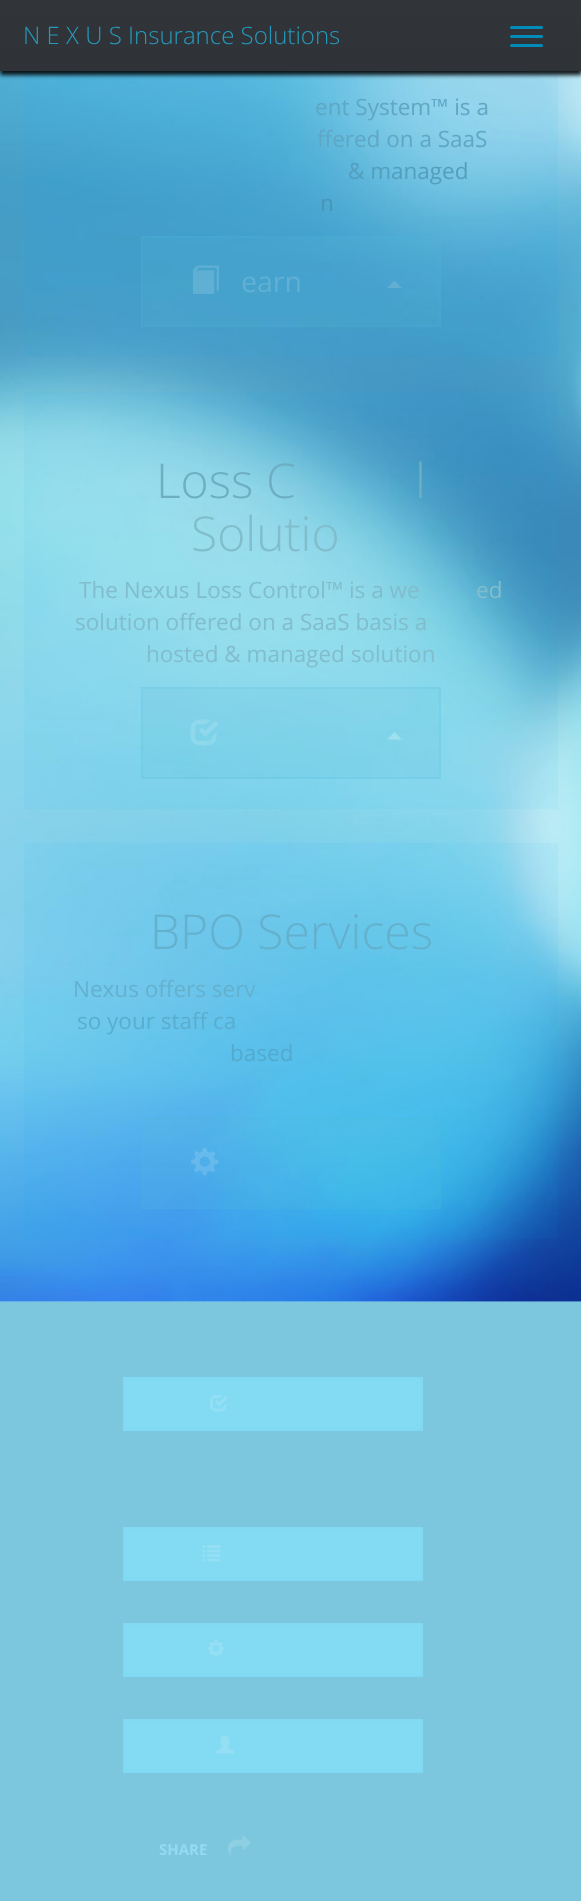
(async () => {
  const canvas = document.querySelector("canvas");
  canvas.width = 581;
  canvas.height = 1901;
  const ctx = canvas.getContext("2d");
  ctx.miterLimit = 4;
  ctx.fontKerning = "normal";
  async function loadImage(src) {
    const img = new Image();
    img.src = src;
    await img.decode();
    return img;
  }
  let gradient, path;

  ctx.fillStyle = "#88def7";
  ctx.fillRect(0, 0, 581, 1901);
  ctx.drawImage(await loadImage("img/1.png"), 0, 71, 581, 1231);
  ctx.fillStyle = "rgba(0, 175, 255, 0.05)";
  ctx.fillRect(24, 71, 534, 286);
  ctx.fillStyle = "rgba(0, 0, 0, 0.9)";
  ctx.filter = "blur(2px)";
  ctx.beginPath();
  ctx.rect(0, 5, 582, 70);
  ctx.fill();
  ctx.filter = "none";
  gradient = ctx.createLinearGradient(291, 0, 291, 71);
  gradient.addColorStop(0, "#31353a");
  gradient.addColorStop(1, "#2f3337");
  ctx.fillStyle = gradient;
  ctx.fillRect(0, 0, 581, 71);
  ctx.fillStyle = "#008cba";
  ctx.beginPath();
  ctx.roundRect(510, 26, 33, 3, 1.5);
  ctx.fill();
  ctx.beginPath();
  ctx.roundRect(510, 35, 33, 3, 1.5);
  ctx.fill();
  ctx.beginPath();
  ctx.roundRect(510, 44, 33, 3, 1.5);
  ctx.fill();
  ctx.fillStyle = "rgba(91, 192, 222, 0.14)";
  ctx.fillRect(141, 236, 300, 91);
  ctx.strokeStyle = "rgba(70, 184, 218, 0.14)";
  ctx.lineWidth = 2;
  ctx.strokeRect(142, 237, 298, 89);
  ctx.drawImage(await loadImage("img/2.png"), 193, 265, 26, 29);
  ctx.fillStyle = "#63aed3";
  path = new Path2D("M402 288H387L394.5 280.5Z");
  ctx.fill(path);
  ctx.fillStyle = "rgba(0, 175, 255, 0.05)";
  ctx.fillRect(24, 392, 534, 417);
  ctx.fillStyle = "rgba(91, 192, 222, 0.14)";
  ctx.fillRect(141, 687, 300, 92);
  ctx.strokeRect(142, 688, 298, 90);
  ctx.drawImage(await loadImage("img/3.png"), 190, 719, 29, 27);
  ctx.fillStyle = "#9ee0ee";
  path = new Path2D("M402 739.5H387L394.5 732Z");
  ctx.fill(path);
  ctx.fillStyle = "rgba(0, 175, 255, 0.05)";
  ctx.fillRect(24, 843, 534, 396);
  ctx.fillStyle = "rgba(91, 192, 222, 0.14)";
  ctx.fillRect(141, 1118, 300, 91);
  ctx.strokeRect(142, 1119, 298, 89);
  ctx.drawImage(await loadImage("img/4.png"), 191, 1148, 28, 28);
  ctx.fillStyle = "#7cc7dd";
  ctx.fillRect(0, 1302, 581, 599);
  ctx.fillStyle = "#82daf3";
  ctx.beginPath();
  ctx.rect(124, 1378, 298, 52);
  ctx.fill();
  ctx.strokeStyle = "#7fd9f3";
  ctx.stroke();
  ctx.drawImage(await loadImage("img/5.png"), 210, 1395, 18, 17);
  ctx.beginPath();
  ctx.rect(124, 1528, 298, 52);
  ctx.fill();
  ctx.stroke();
  ctx.drawImage(await loadImage("img/6.png"), 202, 1545, 19, 17);
  ctx.beginPath();
  ctx.rect(124, 1624, 298, 52);
  ctx.fill();
  ctx.stroke();
  ctx.drawImage(await loadImage("img/7.png"), 207, 1640, 18, 17);
  ctx.beginPath();
  ctx.rect(124, 1720, 298, 52);
  ctx.fill();
  ctx.stroke();
  ctx.drawImage(await loadImage("img/8.png"), 216, 1735, 18, 19);
  ctx.drawImage(await loadImage("img/9.png"), 228, 1835, 23, 21);
  ctx.font = "300 24px Open Sans";
  ctx.fillStyle = "#269abc";
  ctx.fillText("N E X U S Insurance Solutions", 23, 44);
  ctx.font = "22.5px Open Sans";
  ctx.fillStyle = "#5fa7c4";
  ctx.fillText("ent System™ is a", 315, 115);
  ctx.fillText("ffered on a SaaS", 317, 147);
  ctx.fillStyle = "#549ebe";
  ctx.fillText("& managed", 348, 179);
  ctx.fillStyle = "#4895b7";
  ctx.fillText("n", 320, 211);
  ctx.font = "28.5px Open Sans";
  ctx.fillStyle = "#60b0d5";
  ctx.fillText("earn", 241, 292);
  ctx.font = "300 48px Open Sans";
  ctx.fillStyle = "#6eaec3";
  ctx.fillText("Loss C", 156, 498);
  ctx.fillText("l", 415, 498);
  ctx.fillStyle = "#81bdcc";
  ctx.fillText("Solutio", 191, 551);
  ctx.font = "22.5px Open Sans";
  for (const [text, x, y] of [
    ["The Nexus Loss Control™ is a we", 79, 598],
    ["ed", 476, 598],
    ["solution offered on a SaaS basis a", 75, 630],
    ["hosted & managed solution", 146, 662],
  ]) {
    ctx.fillText(text, x, y);
  }
  ctx.font = "300 48px Open Sans";
  ctx.fillStyle = "#64b1ce";
  ctx.fillText("BPO Services", 150, 949);
  ctx.font = "22.5px Open Sans";
  ctx.fillText("Nexus offers serv", 73, 997);
  ctx.fillStyle = "#5aadce";
  ctx.fillText("so your staff ca", 77, 1029);
  ctx.fillStyle = "#54aacd";
  ctx.fillText("based", 230, 1061);
  ctx.font = "bold 15px Open Sans";
  ctx.fillStyle = "#92dbf1";
  ctx.fillText("SHARE", 159, 1855);
})();
